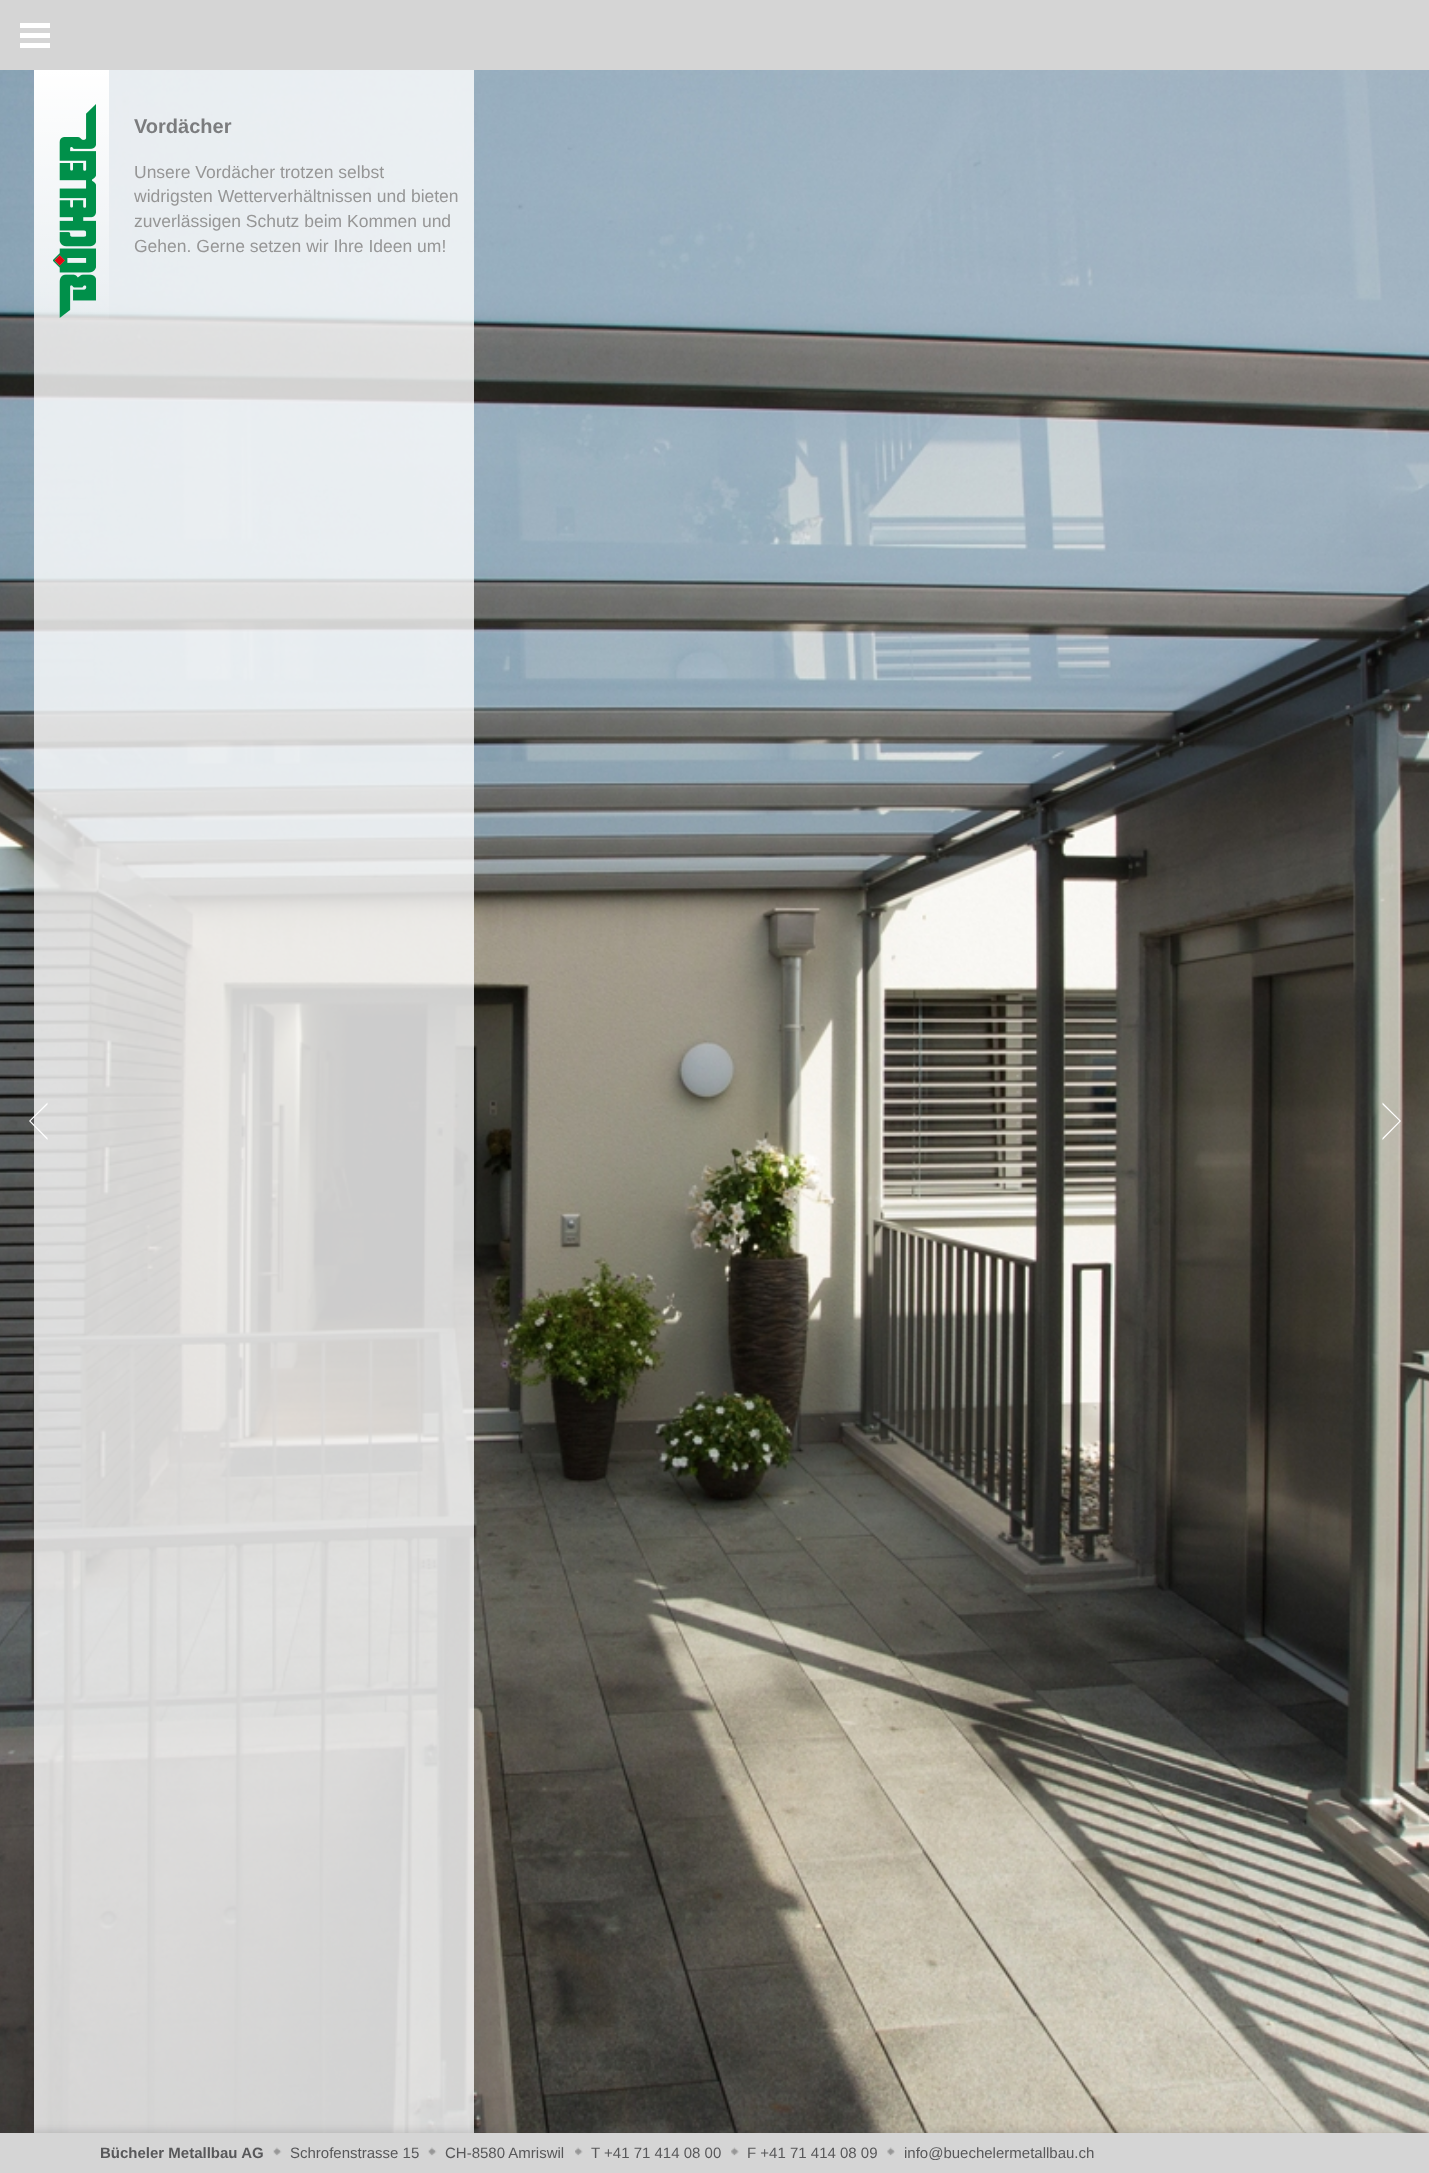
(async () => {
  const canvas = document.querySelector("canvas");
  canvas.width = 1429;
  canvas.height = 2173;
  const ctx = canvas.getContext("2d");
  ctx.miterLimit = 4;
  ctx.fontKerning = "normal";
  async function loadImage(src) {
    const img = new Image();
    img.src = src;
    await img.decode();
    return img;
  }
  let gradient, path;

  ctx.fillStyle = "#ffffff";
  ctx.fillRect(0, 0, 1429, 2173);
  ctx.drawImage(await loadImage("img/1.png"), 0, 70, 1429, 2063);
  path = new Path2D("M29 1121L47.5 1140V1138L30.5 1121L47.5 1104.5V1102.5Z");
  ctx.fill(path);
  path = new Path2D("M1401 1121L1382.5 1102.5V1104.5L1399.5 1121L1382.5 1138V1140Z");
  ctx.fill(path);
  for (const [x, y, w, h, color] of [
    [0, 0, 1429, 70, "#d5d5d5"],
    [20, 33, 30, 5, "#ffffff"],
    [20, 23, 30, 5, "#ffffff"],
    [20, 43, 30, 5, "#ffffff"],
    [34, 70, 440, 2063, "rgba(255, 255, 255, 0.8)"],
  ]) {
    ctx.fillStyle = color;
    ctx.fillRect(x, y, w, h);
  }
  gradient = ctx.createLinearGradient(71, 70, 71, 336);
  gradient.addColorStop(0, "#ffffff");
  gradient.addColorStop(1, "rgba(255, 255, 255, 0)");
  ctx.fillStyle = gradient;
  ctx.fillRect(34, 70, 75, 249);
  ctx.drawImage(await loadImage("img/2.png"), 53, 104, 43, 214);
  ctx.fillStyle = "rgba(67, 67, 69, 0.3)";
  ctx.filter = "blur(6px)";
  ctx.beginPath();
  ctx.rect(0, 2134, 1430, 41);
  ctx.fill();
  ctx.filter = "none";
  ctx.fillStyle = "#d5d5d5";
  ctx.fillRect(0, 2133, 1429, 40);
  ctx.drawImage(await loadImage("img/3.png"), 273, 2147, 9, 9);
  ctx.drawImage(await loadImage("img/4.png"), 428, 2147, 9, 9);
  ctx.drawImage(await loadImage("img/5.png"), 575, 2147, 8, 9);
  ctx.drawImage(await loadImage("img/6.png"), 731, 2147, 8, 9);
  ctx.drawImage(await loadImage("img/7.png"), 887, 2147, 8, 9);
  ctx.font = "bold 20px Liberation Sans";
  ctx.fillStyle = "#7b7c7e";
  ctx.fillText("Vordächer", 134, 133);
  ctx.font = "17.5px Liberation Sans";
  ctx.fillStyle = "#969696";
  for (const [text, x, y] of [
    ["Unsere Vordächer trotzen selbst", 134, 178],
    ["widrigsten Wetterverhältnissen und bieten", 134, 202],
    ["zuverlässigen Schutz beim Kommen und", 134, 227],
    ["Gehen. Gerne setzen wir Ihre Ideen um!", 134, 252],
  ]) {
    ctx.fillText(text, x, y);
  }
  ctx.font = "bold 15px Liberation Sans";
  ctx.fillStyle = "#58585a";
  ctx.fillText("Bücheler Metallbau AG", 100, 2158);
  ctx.font = "15px Liberation Sans";
  for (const [text, x, y] of [
    ["Schrofenstrasse 15", 290, 2158],
    ["CH-8580 Amriswil", 445, 2158],
    ["T +41 71 414 08 00", 591, 2158],
    ["F +41 71 414 08 09", 747, 2158],
    ["info@buechelermetallbau.ch", 904, 2158],
  ]) {
    ctx.fillText(text, x, y);
  }
})();
